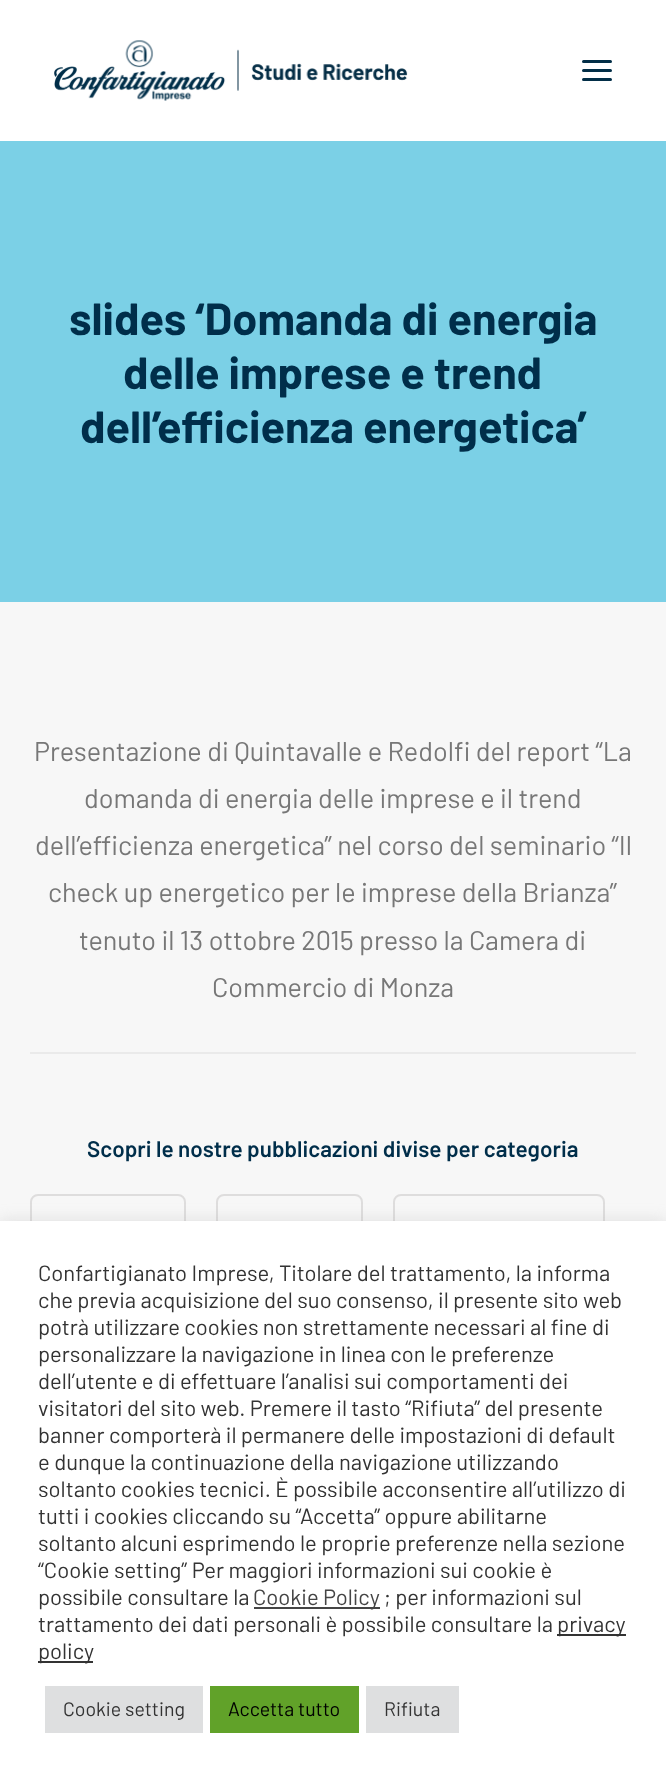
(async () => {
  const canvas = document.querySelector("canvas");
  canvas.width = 666;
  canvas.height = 1777;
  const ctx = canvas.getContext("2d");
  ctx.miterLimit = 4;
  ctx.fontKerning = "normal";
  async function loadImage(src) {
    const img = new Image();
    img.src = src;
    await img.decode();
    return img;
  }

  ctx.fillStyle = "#f7f7f7";
  ctx.fillRect(0, 0, 666, 1777);
  ctx.fillStyle = "#ffffff";
  ctx.fillRect(0, 0, 666, 141);
  ctx.drawImage(await loadImage("img/1.png"), 54, 40, 354, 61);
  ctx.fillStyle = "#022e47";
  ctx.beginPath();
  ctx.roundRect(582, 69, 30, 3, 1.5);
  ctx.fill();
  ctx.beginPath();
  ctx.roundRect(582, 60, 30, 3, 1.5);
  ctx.fill();
  ctx.beginPath();
  ctx.roundRect(582, 78, 30, 3, 1.5);
  ctx.fill();
  ctx.fillStyle = "#7bd0e6";
  ctx.fillRect(0, 141, 666, 461);
  ctx.fillStyle = "#eaeaea";
  ctx.fillRect(30, 1052, 606, 2);
  ctx.beginPath();
  ctx.roundRect(31, 1195, 154, 58, 7);
  ctx.strokeStyle = "#dedddd";
  ctx.lineWidth = 2;
  ctx.stroke();
  ctx.beginPath();
  ctx.roundRect(217, 1195, 145, 58, 7);
  ctx.stroke();
  ctx.beginPath();
  ctx.roundRect(394, 1195, 210, 58, 7);
  ctx.stroke();
  ctx.fillStyle = "rgba(172, 171, 171, 0.3)";
  ctx.filter = "blur(7.5px)";
  ctx.beginPath();
  ctx.rect(0, 1220, 666, 556);
  ctx.fill();
  ctx.filter = "none";
  for (const [x, y, w, h, color] of [
    [0, 1221, 666, 556, "#ffffff"],
    [254, 1607, 126, 2, "#444444"],
    [557, 1634, 69, 2, "#333333"],
    [38, 1661, 55, 2, "#333333"],
    [45, 1686, 158, 47, "#dedfe0"],
    [210, 1686, 149, 47, "#61a229"],
    [366, 1686, 93, 47, "#dedfe0"],
  ]) {
    ctx.fillStyle = color;
    ctx.fillRect(x, y, w, h);
  }
  ctx.font = "bold 45px Barlow";
  ctx.fillStyle = "#002e4a";
  for (const [text, x, y] of [
    ["slides ‘Domanda di energia", 69, 335],
    ["delle imprese e trend", 123, 389],
    ["dell’efficienza energetica’", 80, 443],
  ]) {
    ctx.fillText(text, x, y);
  }
  ctx.font = "27px Barlow";
  ctx.fillStyle = "#777777";
  for (const [text, x, y] of [
    ["Presentazione di Quintavalle e Redolfi del report “La", 34, 761],
    ["domanda di energia delle imprese e il trend", 84, 808],
    ["dell’efficienza energetica” nel corso del seminario “Il", 35, 855],
    ["check up energetico per le imprese della Brianza”", 48, 902],
    ["tenuto il 13 ottobre 2015 presso la Camera di", 79, 950],
    ["Commercio di Monza", 212, 997],
  ]) {
    ctx.fillText(text, x, y);
  }
  ctx.font = "600 22.5px Barlow";
  ctx.fillStyle = "#002e4a";
  ctx.fillText("Scopri le nostre pubblicazioni divise per categoria", 87, 1157);
  ctx.font = "22px Barlow";
  ctx.fillStyle = "#333333";
  for (const [text, x, y] of [
    ["Confartigianato Imprese, Titolare del trattamento, la informa", 38, 1281],
    ["che previa acquisizione del suo consenso, il presente sito web", 38, 1308],
    ["potrà utilizzare cookies non strettamente necessari al fine di", 38, 1335],
    ["personalizzare la navigazione in linea con le preferenze", 38, 1362],
    ["dell’utente e di effettuare l’analisi sui comportamenti dei", 38, 1389],
    ["visitatori del sito web. Premere il tasto “Rifiuta” del presente", 38, 1416],
    ["banner comporterà il permanere delle impostazioni di default", 38, 1443],
    ["e dunque la continuazione della navigazione utilizzando", 38, 1470],
    ["soltanto cookies tecnici. È possibile acconsentire all’utilizzo di", 38, 1497],
    ["tutti i cookies cliccando su “Accetta” oppure abilitarne", 38, 1524],
    ["soltanto alcuni esprimendo le proprie preferenze nella sezione", 38, 1551],
    ["“Cookie setting” Per maggiori informazioni sui cookie è", 38, 1578],
    ["possibile consultare la", 38, 1605],
  ]) {
    ctx.fillText(text, x, y);
  }
  ctx.fillStyle = "#444444";
  ctx.fillText("Cookie Policy", 253, 1605);
  ctx.fillStyle = "#333333";
  for (const [text, x, y] of [
    ["; per informazioni sul", 384, 1605],
    ["trattamento dei dati personali è possibile consultare la", 38, 1632],
    ["privacy", 557, 1632],
    ["policy", 38, 1659],
  ]) {
    ctx.fillText(text, x, y);
  }
  ctx.font = "19.5px Barlow";
  ctx.fillText("Cookie setting", 63, 1716);
  ctx.fillStyle = "#000000";
  ctx.fillText("Accetta tutto", 228, 1716);
  ctx.fillStyle = "#333333";
  ctx.fillText("Rifiuta", 384, 1716);
})();
